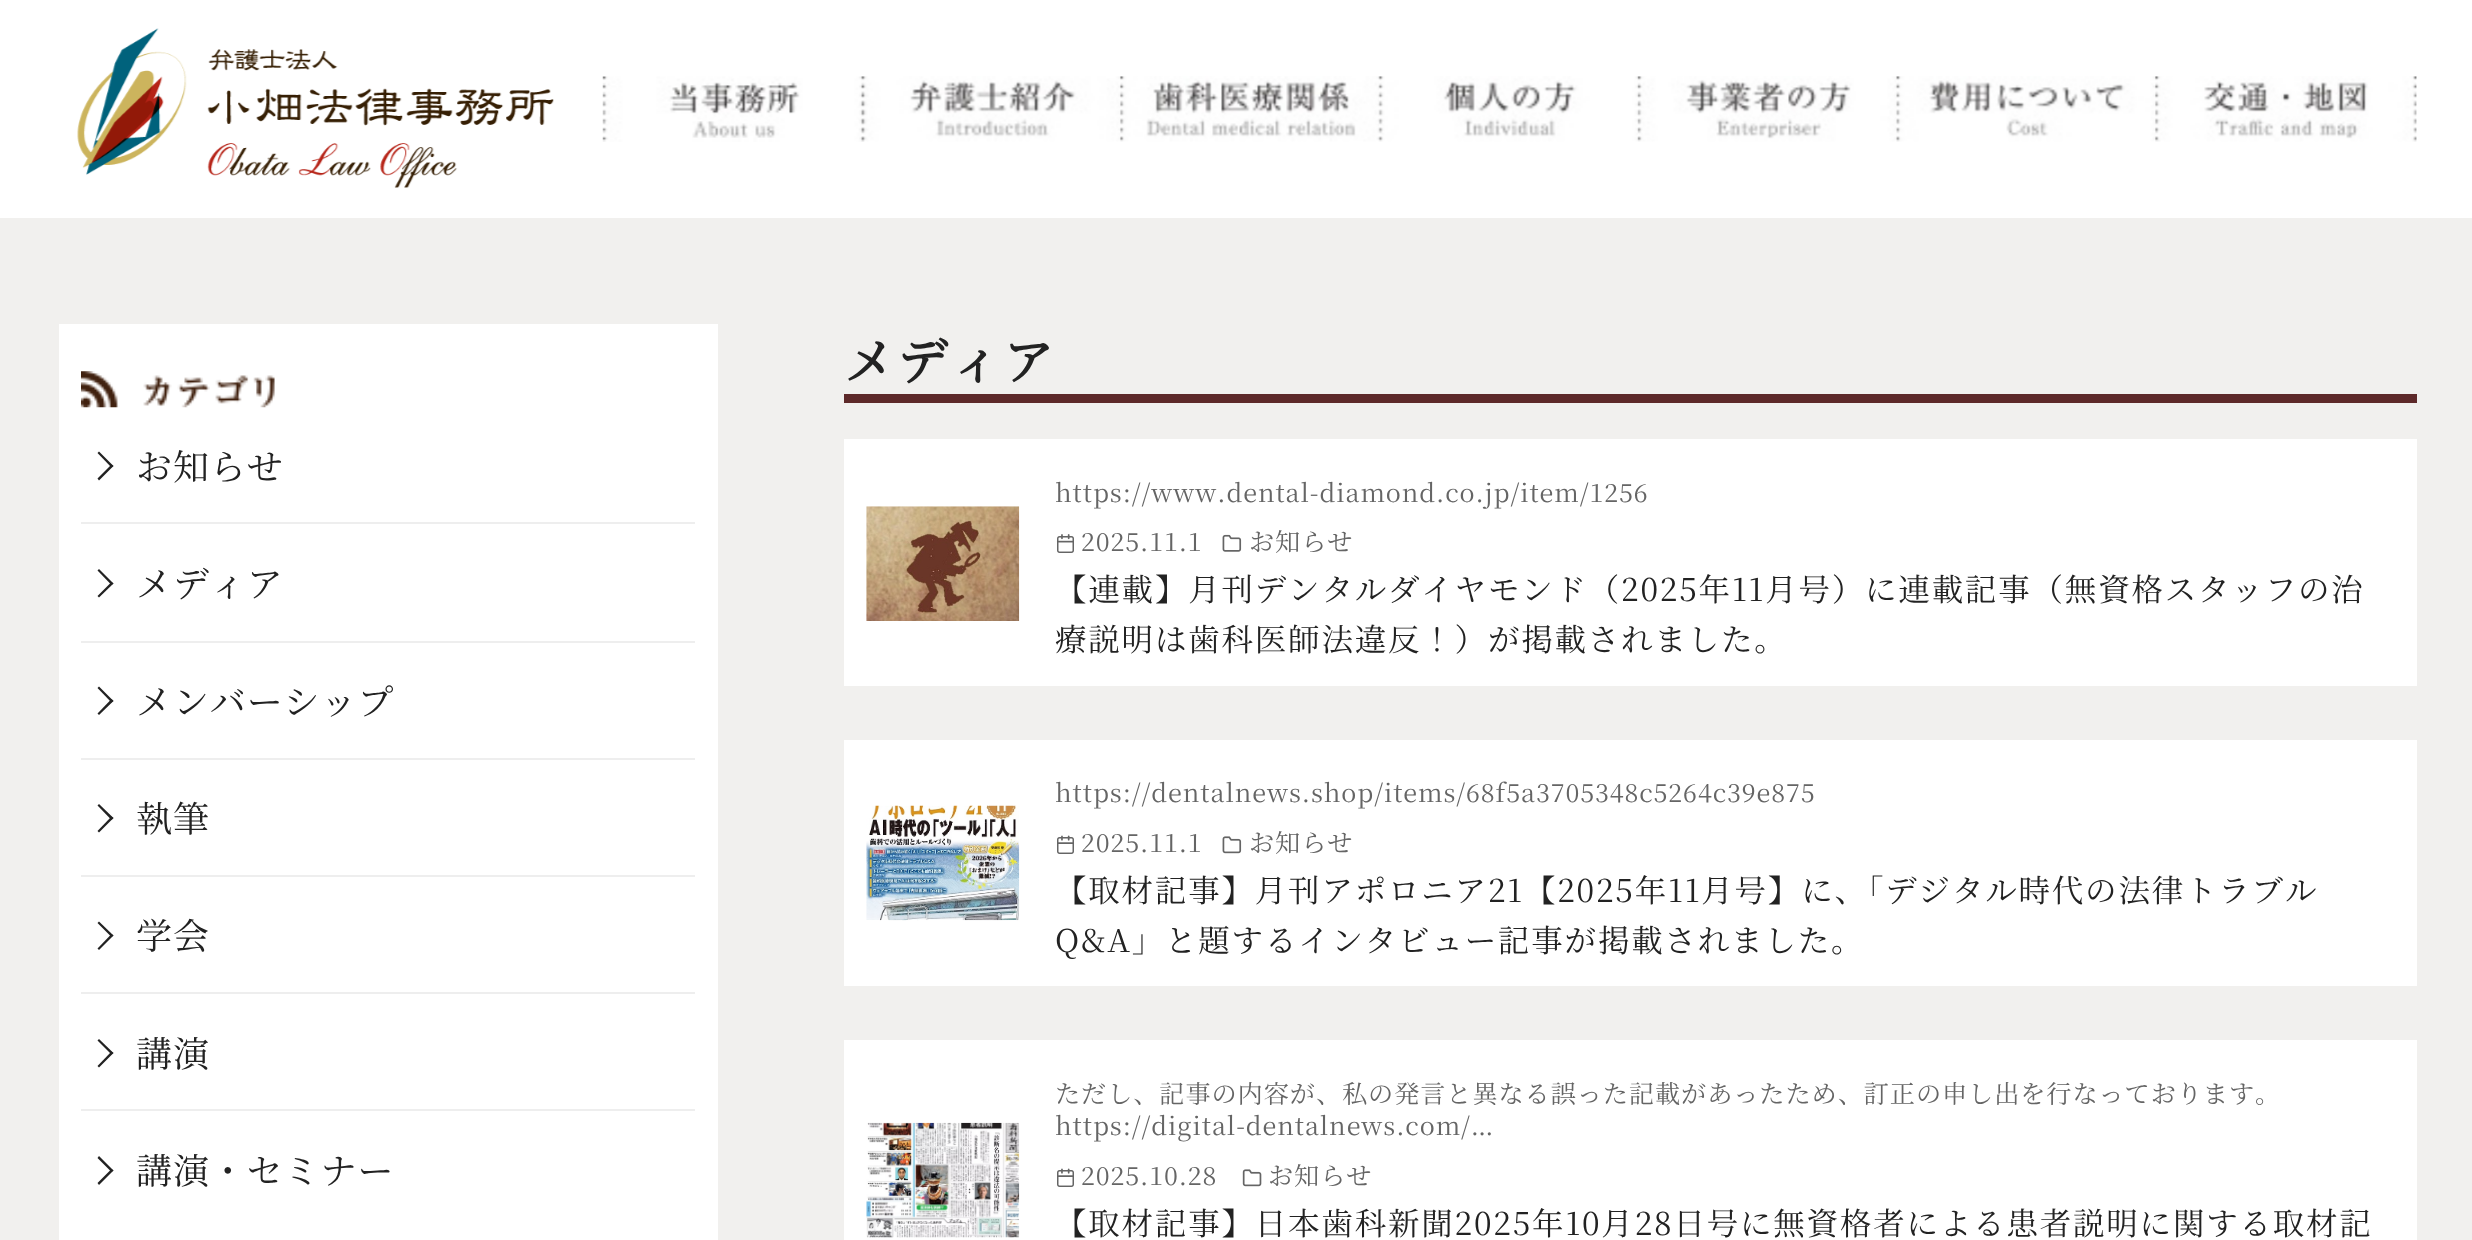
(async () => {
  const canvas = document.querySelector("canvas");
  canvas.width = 2472;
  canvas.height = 1240;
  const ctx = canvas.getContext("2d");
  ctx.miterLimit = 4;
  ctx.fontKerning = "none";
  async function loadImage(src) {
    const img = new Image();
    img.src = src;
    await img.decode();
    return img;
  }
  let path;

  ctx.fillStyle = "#f1f0ee";
  ctx.fillRect(0, 0, 2472, 1240);
  ctx.fillStyle = "#ffffff";
  ctx.fillRect(0, 0, 2472, 218);
  ctx.drawImage(await loadImage("img/1.png"), 77, 28, 477, 160);
  ctx.drawImage(await loadImage("img/2.png"), 602, 76, 260, 66);
  ctx.drawImage(await loadImage("img/3.png"), 861, 76, 260, 66);
  ctx.drawImage(await loadImage("img/4.png"), 1120, 76, 259, 66);
  ctx.drawImage(await loadImage("img/5.png"), 1378, 76, 260, 66);
  ctx.drawImage(await loadImage("img/6.png"), 1637, 76, 260, 66);
  ctx.drawImage(await loadImage("img/7.png"), 1896, 76, 260, 66);
  ctx.drawImage(await loadImage("img/8.png"), 2155, 76, 262, 66);
  ctx.fillRect(59, 324, 659, 916);
  ctx.drawImage(await loadImage("img/9.png"), 81, 371, 194, 37);
  ctx.fillStyle = "#eeeeee";
  ctx.fillRect(81, 522, 614, 2);
  ctx.fillStyle = "#222222";
  path = new Path2D("M97.5 453L99 451.5L113.5 466L111.5 467.5Z");
  ctx.fill(path);
  path = new Path2D("M97.5 478.5L111.5 464.5L113.5 466L99 480.5Z");
  ctx.fill(path);
  ctx.fillStyle = "#eeeeee";
  ctx.fillRect(81, 641, 614, 2);
  ctx.fillStyle = "#222222";
  path = new Path2D("M97.5 570.5L99 569L113.5 583.5L111.5 585Z");
  ctx.fill(path);
  path = new Path2D("M97.5 596L111.5 582L113.5 583.5L99 597.5Z");
  ctx.fill(path);
  ctx.fillStyle = "#eeeeee";
  ctx.fillRect(81, 758, 614, 2);
  ctx.fillStyle = "#222222";
  path = new Path2D("M97.5 688L99 686.5L113.5 701L111.5 702.5Z");
  ctx.fill(path);
  path = new Path2D("M97.5 713.5L111.5 699L113.5 701L99 715Z");
  ctx.fill(path);
  ctx.fillStyle = "#eeeeee";
  ctx.fillRect(81, 875, 614, 2);
  ctx.fillStyle = "#222222";
  path = new Path2D("M97.5 805.5L99 804L113.5 818L111.5 820Z");
  ctx.fill(path);
  path = new Path2D("M97.5 831L111.5 816.5L113.5 818L99 832.5Z");
  ctx.fill(path);
  ctx.fillStyle = "#eeeeee";
  ctx.fillRect(81, 992, 614, 2);
  ctx.fillStyle = "#222222";
  path = new Path2D("M97.5 923L99 921.5L113.5 935.5L111.5 937Z");
  ctx.fill(path);
  path = new Path2D("M97.5 948.5L111.5 934L113.5 935.5L99 950Z");
  ctx.fill(path);
  ctx.fillStyle = "#eeeeee";
  ctx.fillRect(81, 1109, 614, 2);
  ctx.fillStyle = "#222222";
  path = new Path2D("M97.5 1040.5L99 1039L113.5 1053L111.5 1054.5Z");
  ctx.fill(path);
  path = new Path2D("M97.5 1066L111.5 1051.5L113.5 1053L99 1067.5Z");
  ctx.fill(path);
  path = new Path2D("M97.5 1158L99 1156L113.5 1170.5L111.5 1172Z");
  ctx.fill(path);
  path = new Path2D("M97.5 1183L111.5 1169L113.5 1170.5L99 1185Z");
  ctx.fill(path);
  ctx.fillStyle = "#5d2929";
  ctx.fillRect(844, 394, 1573, 9);
  ctx.fillStyle = "#ffffff";
  ctx.fillRect(844, 439, 1573, 247);
  ctx.drawImage(await loadImage("img/10.png"), 866, 506, 154, 115);
  ctx.drawImage(await loadImage("img/11.png"), 1056, 534, 18, 19);
  ctx.drawImage(await loadImage("img/12.png"), 1222, 534, 20, 18);
  ctx.fillRect(844, 740, 1573, 246);
  ctx.drawImage(await loadImage("img/13.png"), 866, 805, 154, 116);
  ctx.drawImage(await loadImage("img/14.png"), 1057, 835, 17, 19);
  ctx.drawImage(await loadImage("img/15.png"), 1222, 836, 20, 18);
  ctx.fillRect(844, 1040, 1573, 200);
  ctx.drawImage(await loadImage("img/16.png"), 866, 1122, 154, 116);
  ctx.drawImage(await loadImage("img/14.png"), 1057, 1168, 17, 19);
  ctx.drawImage(await loadImage("img/17.png"), 1242, 1169, 20, 18);
  ctx.letterSpacing = "0.9px";
  ctx.font = "200 36px Noto Serif JP";
  ctx.fillStyle = "#222222";
  for (const [text, x, y] of [
    ["お知らせ", 136, 480],
    ["メディア", 136, 597],
    ["メンバーシップ", 136, 715],
    ["執筆", 136, 832],
    ["学会", 136, 949],
    ["講演", 136, 1067],
    ["講演・セミナー", 136, 1184],
  ]) {
    ctx.fillText(text, x, y);
  }
  ctx.letterSpacing = "2.5px";
  ctx.font = "bold 50.5px Noto Serif JP";
  ctx.fillText("メディア", 844, 380);
  ctx.letterSpacing = "0.9px";
  ctx.font = "200 25.2px Noto Serif JP";
  ctx.fillStyle = "#656565";
  for (const [text, x, y] of [
    ["https://www.dental-diamond.co.jp/item/1256", 1055, 502],
    ["2025.11.1", 1081, 551],
    ["お知らせ", 1249, 551],
  ]) {
    ctx.fillText(text, x, y);
  }
  ctx.letterSpacing = "1.8px";
  ctx.font = "200 31.5px Noto Serif JP";
  ctx.fillStyle = "#222222";
  ctx.fillText("【連載】月刊デンタルダイヤモンド（2025年11月号）に連載記事（無資格スタッフの治", 1055, 601);
  ctx.fillText("療説明は歯科医師法違反！）が掲載されました。", 1055, 651);
  ctx.letterSpacing = "0.9px";
  ctx.font = "200 25.2px Noto Serif JP";
  ctx.fillStyle = "#656565";
  for (const [text, x, y] of [
    ["https://dentalnews.shop/items/68f5a3705348c5264c39e875", 1055, 802],
    ["2025.11.1", 1081, 852],
    ["お知らせ", 1249, 852],
  ]) {
    ctx.fillText(text, x, y);
  }
  ctx.letterSpacing = "1.8px";
  ctx.font = "200 31.5px Noto Serif JP";
  ctx.fillStyle = "#222222";
  ctx.fillText("【取材記事】月刊アポロニア21【2025年11月号】に、「デジタル時代の法律トラブル", 1055, 902);
  ctx.fillText("Q&A」と題するインタビュー記事が掲載されました。", 1055, 952);
  ctx.letterSpacing = "0.9px";
  ctx.font = "200 25.2px Noto Serif JP";
  ctx.fillStyle = "#656565";
  for (const [text, x, y] of [
    ["ただし、記事の内容が、私の発言と異なる誤った記載があったため、訂正の申し出を行なっております。", 1055, 1103],
    ["https://digital-dentalnews.com/…", 1055, 1135],
    ["2025.10.28", 1081, 1185],
    ["お知らせ", 1268, 1185],
  ]) {
    ctx.fillText(text, x, y);
  }
  ctx.letterSpacing = "1.8px";
  ctx.font = "200 31.5px Noto Serif JP";
  ctx.fillStyle = "#222222";
  ctx.fillText("【取材記事】日本歯科新聞2025年10月28日号に無資格者による患者説明に関する取材記", 1055, 1235);
})();
